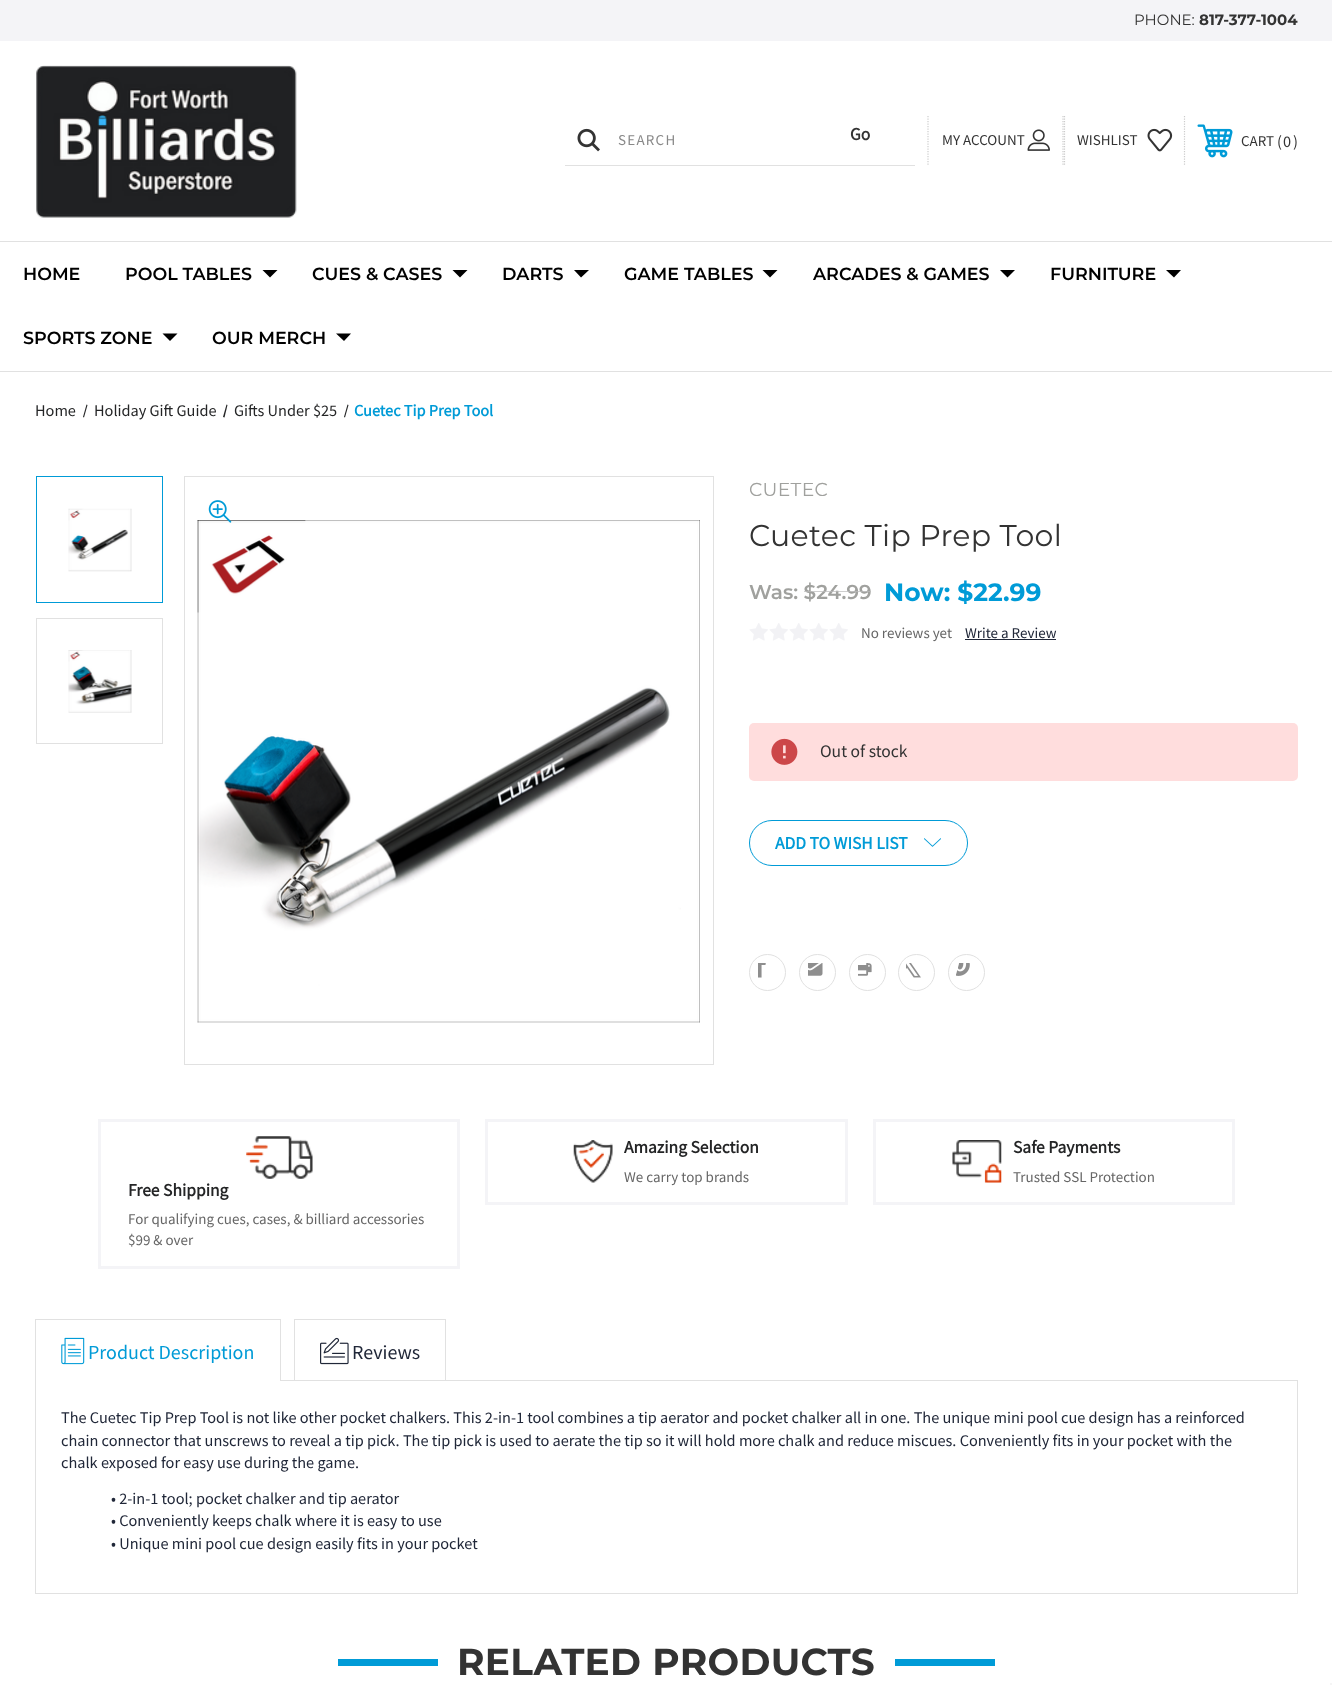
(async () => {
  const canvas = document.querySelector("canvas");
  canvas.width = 1332;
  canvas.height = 1685;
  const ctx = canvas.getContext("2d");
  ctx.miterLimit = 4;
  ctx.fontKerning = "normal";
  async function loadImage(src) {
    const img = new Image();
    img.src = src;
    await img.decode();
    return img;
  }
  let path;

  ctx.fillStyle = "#ffffff";
  ctx.fillRect(0, 0, 1332, 1685);
  ctx.fillStyle = "#f4f4f7";
  ctx.fillRect(0, 0, 1332, 41);
  ctx.fillStyle = "#e1e1e1";
  ctx.fillRect(0, 371, 1332, 1);
  ctx.drawImage(await loadImage("img/1.png"), 36, 65, 261, 153);
  ctx.fillRect(565, 165, 350, 1);
  ctx.drawImage(await loadImage("img/2.png"), 577, 128, 23, 24);
  path = new Path2D("M1063 116V166");
  ctx.strokeStyle = "#cccccc";
  ctx.lineWidth = 1.2;
  ctx.setLineDash([1.25, 1.25]);
  ctx.stroke(path);
  path = new Path2D("M928 116V166");
  ctx.stroke(path);
  ctx.drawImage(await loadImage("img/3.png"), 1027, 129, 23, 22);
  path = new Path2D("M1184.5 116V165");
  ctx.stroke(path);
  path = new Path2D("M1064.5 116V165");
  ctx.stroke(path);
  ctx.drawImage(await loadImage("img/4.png"), 1147, 128, 26, 24);
  ctx.drawImage(await loadImage("img/5.png"), 1197, 124, 36, 34);
  ctx.fillRect(0, 241, 1332, 1);
  ctx.fillStyle = "#000000";
  path = new Path2D("M262.5 270L270 277.5L277.5 270Z");
  ctx.fill(path);
  path = new Path2D("M452.5 270L460 277.5L467.5 270Z");
  ctx.fill(path);
  path = new Path2D("M574 270L581 277.5L589 270Z");
  ctx.fill(path);
  path = new Path2D("M762.5 270L770 277.5L777.5 270Z");
  ctx.fill(path);
  path = new Path2D("M1000 270L1007.5 277.5L1015 270Z");
  ctx.fill(path);
  path = new Path2D("M1166 270L1174 277.5L1181 270Z");
  ctx.fill(path);
  path = new Path2D("M162.5 333.5L170 341L177.5 333.5Z");
  ctx.fill(path);
  path = new Path2D("M336 333.5L344 341L351 333.5Z");
  ctx.fill(path);
  ctx.fillStyle = "#242526";
  path = new Path2D("M86.5 404.5L87.5 405L84 417.5L83 417Z");
  ctx.fill(path);
  path = new Path2D("M226.5 404.5L227.5 405L224.5 417.5L223 417Z");
  ctx.fill(path);
  path = new Path2D("M347.5 404.5L348.5 405L345 417.5L344 417Z");
  ctx.fill(path);
  ctx.strokeStyle = "#009bd7";
  ctx.lineWidth = 1;
  ctx.setLineDash([]);
  ctx.strokeRect(36.5, 476.5, 126, 126);
  ctx.drawImage(await loadImage("img/6.png"), 68, 508, 64, 64);
  ctx.strokeStyle = "#e1e1e1";
  ctx.strokeRect(36.5, 618.5, 126, 125);
  ctx.drawImage(await loadImage("img/7.png"), 68, 650, 64, 63);
  ctx.strokeRect(184.5, 476.5, 529, 588);
  ctx.drawImage(await loadImage("img/8.png"), 197, 520, 503, 503);
  ctx.drawImage(await loadImage("img/9.png"), 208, 500, 24, 23);
  ctx.drawImage(await loadImage("img/10.png"), 749, 623, 19, 18);
  ctx.drawImage(await loadImage("img/10.png"), 769, 623, 19, 18);
  ctx.drawImage(await loadImage("img/10.png"), 789, 623, 19, 18);
  ctx.drawImage(await loadImage("img/10.png"), 809, 623, 19, 18);
  ctx.drawImage(await loadImage("img/10.png"), 829, 623, 19, 18);
  ctx.fillStyle = "#202738";
  ctx.fillRect(965, 639, 91, 1);
  ctx.fillStyle = "#ffdddd";
  ctx.beginPath();
  ctx.roundRect(749, 723, 549, 58, 5);
  ctx.fill();
  ctx.drawImage(await loadImage("img/11.png"), 771, 738, 27, 27);
  ctx.beginPath();
  ctx.roundRect(749.5, 820.5, 218, 45, 22.5);
  ctx.strokeStyle = "#009bd7";
  ctx.stroke();
  ctx.drawImage(await loadImage("img/12.png"), 924, 838, 17, 9);
  ctx.beginPath();
  ctx.arc(767.5, 972.5, 18, 0, Math.PI * 2);
  ctx.strokeStyle = "#e1e1e1";
  ctx.stroke();
  ctx.drawImage(await loadImage("img/13.png"), 758, 963, 8, 15);
  ctx.beginPath();
  ctx.arc(817.5, 972.5, 18, 0, Math.PI * 2);
  ctx.stroke();
  ctx.drawImage(await loadImage("img/14.png"), 808, 963, 15, 13);
  ctx.beginPath();
  ctx.arc(867.5, 972.5, 18, 0, Math.PI * 2);
  ctx.stroke();
  ctx.drawImage(await loadImage("img/15.png"), 858, 963, 14, 13);
  ctx.beginPath();
  ctx.arc(916.5, 972.5, 18, 0, Math.PI * 2);
  ctx.stroke();
  ctx.drawImage(await loadImage("img/16.png"), 906, 963, 15, 15);
  ctx.beginPath();
  ctx.arc(966.5, 972.5, 18, 0, Math.PI * 2);
  ctx.stroke();
  ctx.drawImage(await loadImage("img/17.png"), 956, 963, 14, 13);
  ctx.strokeStyle = "#f4f4f7";
  ctx.lineWidth = 3;
  ctx.strokeRect(486.5, 1120.5, 360, 83);
  ctx.drawImage(await loadImage("img/18.png"), 573, 1140, 40, 43);
  ctx.strokeRect(874.5, 1120.5, 359, 83);
  ctx.drawImage(await loadImage("img/19.png"), 952, 1140, 50, 43);
  ctx.strokeRect(99.5, 1120.5, 359, 147);
  ctx.drawImage(await loadImage("img/20.png"), 246, 1136, 67, 43);
  ctx.strokeStyle = "#e1e1e1";
  ctx.lineWidth = 1;
  ctx.strokeRect(35.5, 1380.5, 1262, 213);
  ctx.strokeRect(35.5, 1319.5, 245, 61);
  ctx.drawImage(await loadImage("img/21.png"), 61, 1337, 24, 28);
  ctx.fillStyle = "#ffffff";
  ctx.fillRect(36, 1380, 244, 1);
  ctx.strokeRect(294.5, 1319.5, 151, 61);
  ctx.drawImage(await loadImage("img/22.png"), 320, 1337, 29, 28);
  for (const [x, y, w, h, color] of [
    [338, 1659, 100, 7, "#009bd7"],
    [895, 1659, 100, 7, "#009bd7"],
    [1330, 1683, 2, 2, "#f5f5f5"],
  ]) {
    ctx.fillStyle = color;
    ctx.fillRect(x, y, w, h);
  }
  ctx.font = "15px Montserrat";
  ctx.fillStyle = "#333333";
  ctx.fillText("PHONE:", 1134, 25);
  ctx.font = "bold 15px Montserrat";
  ctx.fillText("817-377-1004", 1199, 25);
  ctx.letterSpacing = "1.25px";
  ctx.font = "15px Source Sans Pro";
  ctx.fillStyle = "#888888";
  ctx.fillText("SEARCH", 618, 145);
  ctx.letterSpacing = "0px";
  ctx.font = "bold 17.5px Source Sans Pro";
  ctx.fillStyle = "#333333";
  ctx.fillText("Go", 850, 140);
  ctx.font = "15px Source Sans Pro";
  for (const [text, x, y] of [
    ["MY ACCOUNT", 942, 145],
    ["WISHLIST", 1077, 145],
    ["CART", 1241, 146],
  ]) {
    ctx.fillText(text, x, y);
  }
  ctx.font = "16.25px Source Sans Pro";
  for (const [text, x, y] of [
    ["(", 1277, 147],
    ["0", 1283, 147],
    [")", 1293, 147],
  ]) {
    ctx.fillText(text, x, y);
  }
  ctx.font = "600 17.5px Montserrat";
  ctx.fillStyle = "#000000";
  for (const [text, x, y] of [
    ["HOME", 23, 280],
    ["POOL TABLES", 125, 280],
    ["CUES & CASES", 312, 280],
    ["DARTS", 502, 280],
    ["GAME TABLES", 624, 280],
    ["ARCADES & GAMES", 813, 280],
    ["FURNITURE", 1050, 280],
    ["SPORTS ZONE", 23, 344],
    ["OUR MERCH", 212, 344],
  ]) {
    ctx.fillText(text, x, y);
  }
  ctx.font = "16.25px Source Sans Pro";
  ctx.fillStyle = "#242526";
  for (const [text, x, y] of [
    ["Home", 35, 416],
    ["Holiday Gift Guide", 94, 416],
    ["Gifts Under $25", 234, 416],
  ]) {
    ctx.fillText(text, x, y);
  }
  ctx.font = "bold 16.25px Source Sans Pro";
  ctx.fillStyle = "#009bd7";
  ctx.fillText("Cuetec Tip Prep Tool", 354, 416);
  ctx.letterSpacing = "0.3px";
  ctx.font = "18.75px Montserrat";
  ctx.fillStyle = "#a0a19e";
  ctx.fillText("CUETEC", 749, 496);
  ctx.font = "30px Montserrat";
  ctx.fillStyle = "#333333";
  ctx.fillText("Cuetec Tip Prep Tool", 749, 546);
  ctx.letterSpacing = "0px";
  ctx.font = "600 20px Montserrat";
  ctx.fillStyle = "#a0a19e";
  ctx.fillText("Was: $24.99", 749, 599);
  ctx.fillStyle = "rgba(186, 186, 186, 0.7)";
  ctx.fillRect(804, 591, 67, 1);
  ctx.font = "bold 25px Montserrat";
  ctx.fillStyle = "#009bd7";
  ctx.fillText("Now: $22.99", 884, 601);
  ctx.font = "15px Source Sans Pro";
  ctx.fillStyle = "#666666";
  ctx.fillText("No reviews yet", 861, 638);
  ctx.fillStyle = "#202738";
  ctx.fillText("Write a Review", 965, 638);
  ctx.font = "17.5px Source Sans Pro";
  ctx.fillStyle = "#333333";
  ctx.fillText("Out of stock", 820, 757);
  ctx.font = "bold 17.5px Source Sans Pro";
  ctx.fillStyle = "#009bd7";
  ctx.fillText("ADD TO WISH LIST", 775, 849);
  ctx.fillStyle = "#242526";
  ctx.fillText("Amazing Selection", 624, 1153);
  ctx.font = "15px Source Sans Pro";
  ctx.fillStyle = "#666666";
  ctx.fillText("We carry top brands", 624, 1182);
  ctx.font = "bold 17.5px Source Sans Pro";
  ctx.fillStyle = "#242526";
  ctx.fillText("Safe Payments", 1013, 1153);
  ctx.font = "15px Source Sans Pro";
  ctx.fillStyle = "#666666";
  ctx.fillText("Trusted SSL Protection", 1013, 1182);
  ctx.font = "bold 17.5px Source Sans Pro";
  ctx.fillStyle = "#242526";
  ctx.fillText("Free Shipping", 128, 1196);
  ctx.font = "15px Source Sans Pro";
  ctx.fillStyle = "#666666";
  ctx.fillText("For qualifying cues, cases, & billiard accessories", 128, 1224);
  ctx.fillText("$99 & over", 128, 1245);
  ctx.font = "20px Source Sans Pro";
  ctx.fillStyle = "#009bd7";
  ctx.fillText("Product Description", 88, 1359);
  ctx.fillStyle = "#202738";
  ctx.fillText("Reviews", 352, 1359);
  ctx.font = "16.25px Source Sans Pro";
  for (const [text, x, y] of [
    ["The Cuetec Tip Prep Tool is not like other pocket chalkers. This 2-in-1 tool combines a tip aerator and pocket chalker all in one. The unique mini pool cue design has a reinforced", 61, 1423],
    ["chain connector that unscrews to reveal a tip pick. The tip pick is used to aerate the tip so it will hold more chalk and reduce miscues. Conveniently fits in your pocket with the", 61, 1446],
    ["chalk exposed for easy use during the game.", 61, 1468],
    ["• 2-in-1 tool; pocket chalker and tip aerator", 111, 1504],
    ["• Conveniently keeps chalk where it is easy to use", 111, 1526],
    ["• Unique mini pool cue design easily fits in your pocket", 111, 1549],
  ]) {
    ctx.fillText(text, x, y);
  }
  ctx.letterSpacing = "0.3px";
  ctx.font = "bold 37.5px Montserrat";
  ctx.fillStyle = "#333333";
  ctx.fillText("RELATED PRODUCTS", 457, 1675);
})();
